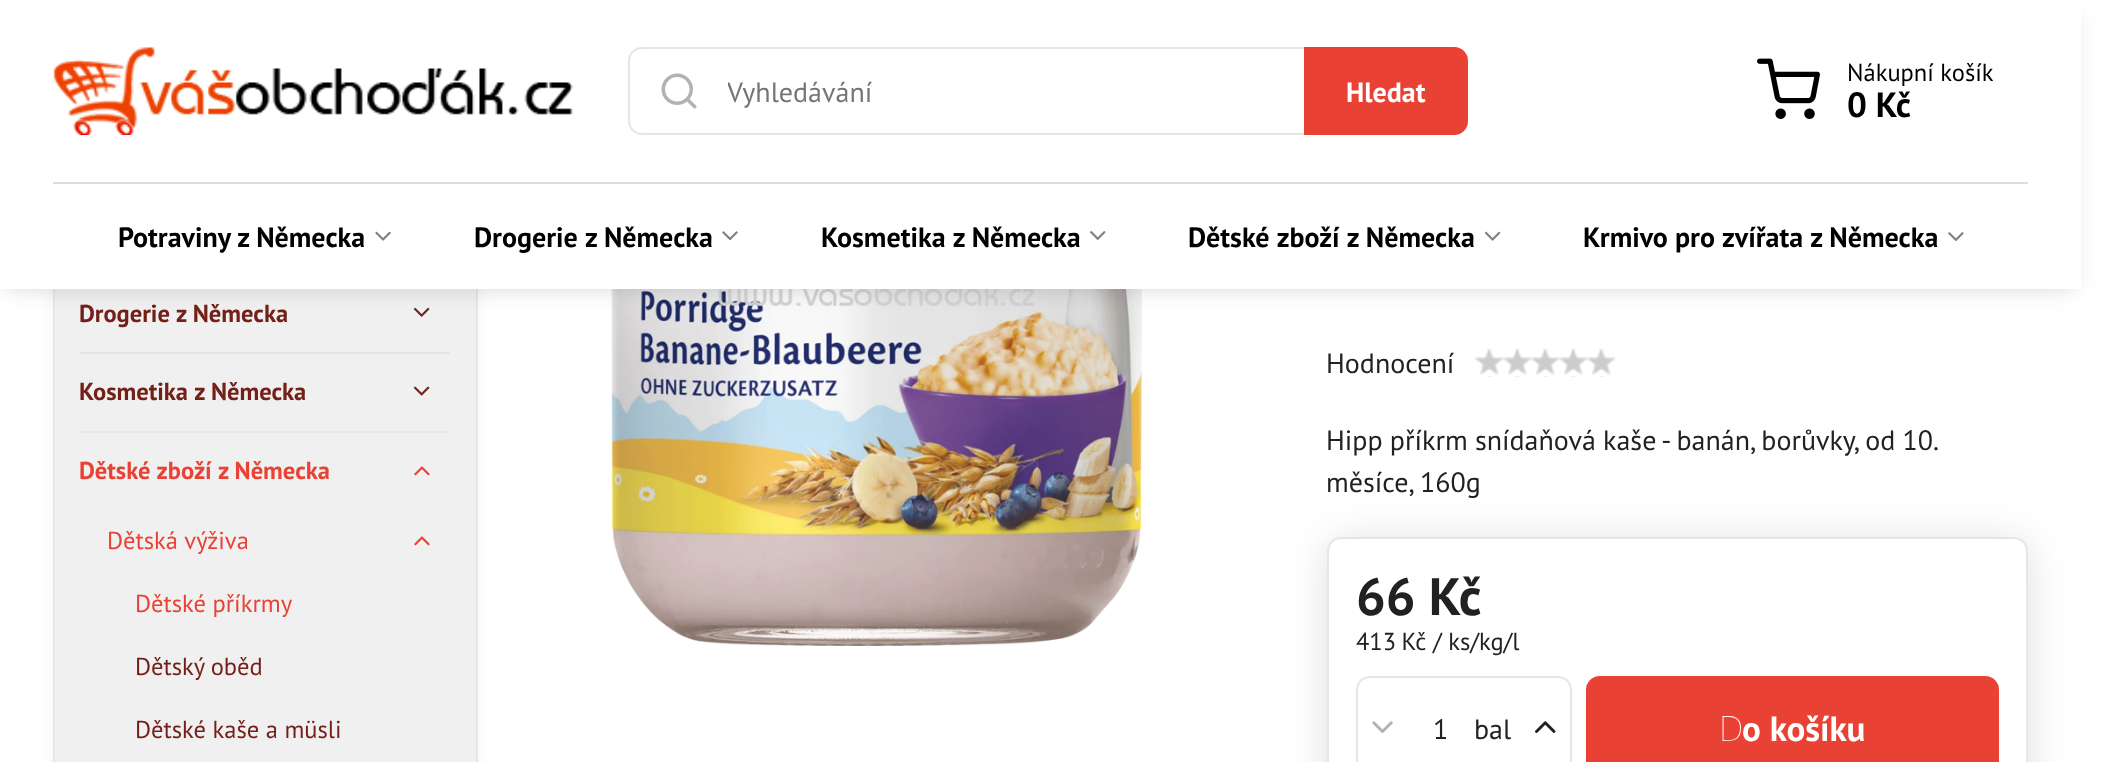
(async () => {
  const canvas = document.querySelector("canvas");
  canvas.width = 2107;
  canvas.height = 762;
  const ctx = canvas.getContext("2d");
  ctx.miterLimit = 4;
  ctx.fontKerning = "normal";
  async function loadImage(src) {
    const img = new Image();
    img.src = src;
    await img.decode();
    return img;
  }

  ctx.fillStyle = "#ffffff";
  ctx.fillRect(0, 0, 2107, 762);
  ctx.fillStyle = "rgba(0, 0, 20, 0.15)";
  ctx.filter = "blur(14px)";
  ctx.beginPath();
  ctx.rect(67, -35, 397, 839);
  ctx.fill();
  ctx.filter = "none";
  ctx.fillStyle = "#f0f0f0";
  ctx.fillRect(55, 289, 421, 473);
  ctx.strokeStyle = "#e6e6e6";
  ctx.lineWidth = 2;
  ctx.strokeRect(54, -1, 423, 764);
  ctx.drawImage(await loadImage("img/9.png"), 413, 307, 17, 10);
  ctx.drawImage(await loadImage("img/12.png"), 611, 289, 532, 357);
  ctx.fillStyle = "rgba(0, 0, 20, 0.15)";
  ctx.filter = "blur(10.5px)";
  ctx.beginPath();
  ctx.rect(7, 14, 2067, 275);
  ctx.fill();
  ctx.filter = "none";
  ctx.fillStyle = "#ffffff";
  ctx.fillRect(0, 0, 2081, 289);
  ctx.drawImage(await loadImage("img/1.png"), 53, 47, 520, 88);
  ctx.beginPath();
  ctx.roundRect(629, 48, 838, 86, 13);
  ctx.stroke();
  ctx.drawImage(await loadImage("img/2.png"), 661, 73, 36, 36);
  ctx.fillStyle = "#e94133";
  ctx.beginPath();
  ctx.roundRect(1304, 47, 164, 88, [0, 14, 14, 0]);
  ctx.fill();
  ctx.drawImage(await loadImage("img/3.png"), 1757, 58, 63, 61);
  ctx.fillStyle = "#dddddd";
  ctx.fillRect(53, 182, 1975, 2);
  ctx.drawImage(await loadImage("img/4.png"), 375, 231, 16, 10);
  ctx.drawImage(await loadImage("img/5.png"), 722, 231, 16, 10);
  ctx.drawImage(await loadImage("img/6.png"), 1090, 231, 16, 9);
  ctx.drawImage(await loadImage("img/7.png"), 1484, 231, 17, 10);
  ctx.drawImage(await loadImage("img/8.png"), 1948, 232, 16, 10);
  ctx.fillStyle = "#e6e6e6";
  ctx.fillRect(79, 352, 371, 2);
  ctx.fillRect(79, 431, 371, 2);
  ctx.drawImage(await loadImage("img/10.png"), 413, 386, 17, 10);
  ctx.drawImage(await loadImage("img/11.png"), 414, 466, 16, 10);
  ctx.drawImage(await loadImage("img/11.png"), 414, 536, 16, 10);
  ctx.drawImage(await loadImage("img/13.png"), 1475, 348, 141, 29);
  ctx.fillStyle = "rgba(0, 0, 20, 0.15)";
  ctx.filter = "blur(21px)";
  ctx.beginPath();
  ctx.roundRect(1330, 544, 695, 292, 11);
  ctx.fill();
  ctx.filter = "none";
  ctx.fillStyle = "#ffffff";
  ctx.beginPath();
  ctx.roundRect(1328, 538, 699, 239, 13);
  ctx.fill();
  ctx.stroke();
  ctx.beginPath();
  ctx.roundRect(1357, 677, 214, 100, 13);
  ctx.stroke();
  ctx.drawImage(await loadImage("img/14.png"), 1372, 721, 21, 12);
  ctx.drawImage(await loadImage("img/15.png"), 1535, 721, 21, 12);
  ctx.fillStyle = "#e94133";
  ctx.beginPath();
  ctx.roundRect(1586, 676, 413, 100, 14);
  ctx.fill();
  ctx.save();
  ctx.beginPath();
  ctx.rect(728, 74, 555, 35);
  ctx.clip();
  ctx.font = "28px PT Sans";
  ctx.fillStyle = "#757575";
  ctx.fillText("Vyhledávání", 727, 102);
  ctx.restore();
  ctx.font = "bold 28px PT Sans";
  ctx.fillStyle = "#ffffff";
  ctx.fillText("Hledat", 1346, 102);
  ctx.font = "24.5px PT Sans";
  ctx.fillStyle = "#000000";
  ctx.fillText("Nákupní košík", 1847, 81);
  ctx.font = "bold 35px PT Sans";
  ctx.fillText("0 Kč", 1847, 117);
  ctx.font = "bold 28px PT Sans";
  for (const [text, x, y] of [
    ["Potraviny z Německa", 118, 247],
    ["Drogerie z Německa", 474, 247],
    ["Kosmetika z Německa", 821, 247],
    ["Dětské zboží z Německa", 1188, 247],
    ["Krmivo pro zvířata z Německa", 1583, 247],
  ]) {
    ctx.fillText(text, x, y);
  }
  ctx.font = "bold 24.5px PT Sans";
  ctx.fillStyle = "#742019";
  ctx.fillText("Drogerie z Německa", 79, 322);
  ctx.fillText("Kosmetika z Německa", 79, 400);
  ctx.fillStyle = "#e94133";
  ctx.fillText("Dětské zboží z Německa", 79, 479);
  ctx.font = "24.5px PT Sans";
  ctx.fillText("Dětská výživa", 107, 549);
  ctx.fillText("Dětské příkrmy", 135, 612);
  ctx.fillStyle = "#742019";
  ctx.fillText("Dětský oběd", 135, 675);
  ctx.fillText("Dětské kaše a müsli", 135, 738);
  ctx.font = "28px PT Sans";
  ctx.fillStyle = "#202123";
  ctx.fillText("Hodnocení", 1326, 373);
  ctx.wordSpacing = "-0.25px";
  ctx.fillText("Hipp příkrm snídaňová kaše - banán, borůvky, od 10.", 1326, 450);
  ctx.wordSpacing = "0px";
  ctx.fillText("měsíce, 160g", 1326, 492);
  ctx.font = "bold 52.5px PT Sans";
  ctx.fillText("66 Kč", 1356, 615);
  ctx.wordSpacing = "-1px";
  ctx.font = "24.5px PT Sans";
  ctx.fillText("413 Kč", 1356, 650);
  ctx.wordSpacing = "0px";
  ctx.fillText("/ ks/kg/l", 1433, 650);
  ctx.font = "28px PT Sans";
  ctx.fillText("1", 1433, 739);
  ctx.fillText("bal", 1474, 739);
  ctx.font = "100 35px Noto Sans";
  ctx.fillStyle = "#ffffff";
  ctx.fillText("D", 1719, 741);
  ctx.font = "bold 35px PT Sans";
  ctx.fillText("o košíku", 1742, 741);
})();
